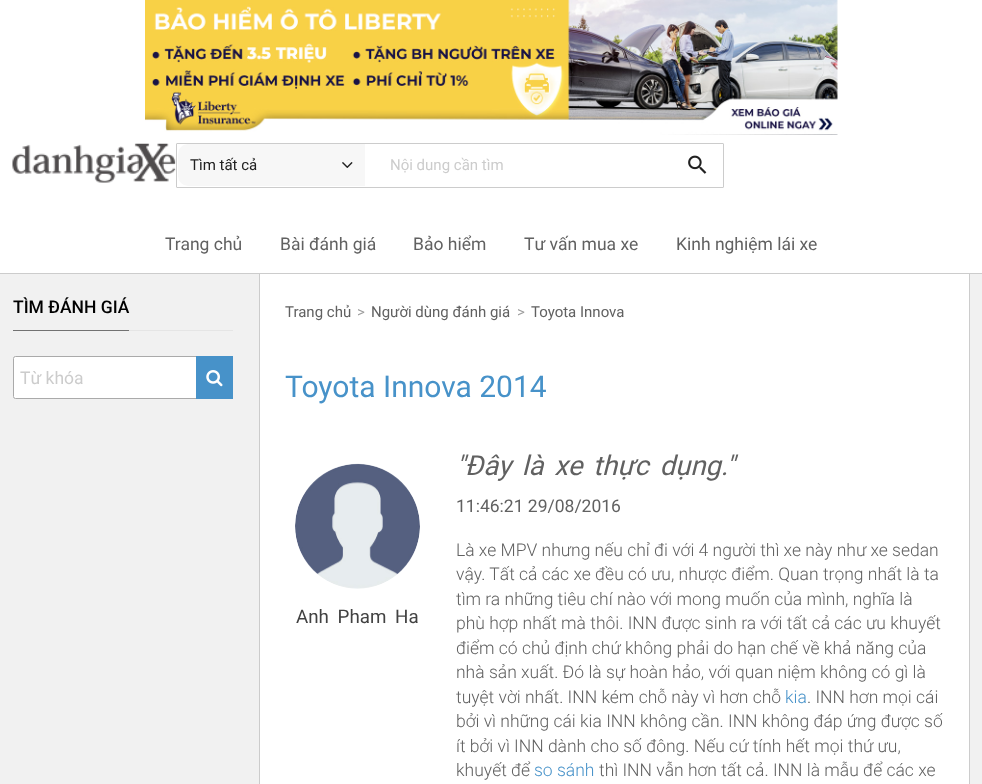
(async () => {
  const canvas = document.querySelector("canvas");
  canvas.width = 982;
  canvas.height = 784;
  const ctx = canvas.getContext("2d");
  ctx.miterLimit = 4;
  ctx.fontKerning = "normal";
  async function loadImage(src) {
    const img = new Image();
    img.src = src;
    await img.decode();
    return img;
  }

  ctx.fillStyle = "#f1f1f1";
  ctx.fillRect(0, 0, 982, 784);
  ctx.fillStyle = "#ffffff";
  ctx.fillRect(0, 0, 982, 273);
  ctx.fillStyle = "#cccccc";
  ctx.fillRect(0, 273, 982, 1);
  ctx.drawImage(await loadImage("img/1.png"), 145, 0, 693, 135);
  ctx.drawImage(await loadImage("img/2.png"), 12, 143, 164, 40);
  ctx.beginPath();
  ctx.roundRect(176.5, 143.5, 547, 44, 0.5);
  ctx.strokeStyle = "#cccccc";
  ctx.stroke();
  ctx.fillStyle = "#f7f7f7";
  ctx.beginPath();
  ctx.roundRect(178, 144, 187, 42, [10, 0, 0, 10]);
  ctx.fill();
  ctx.drawImage(await loadImage("img/3.png"), 342, 162, 11, 6);
  ctx.drawImage(await loadImage("img/4.png"), 688, 155, 19, 19);
  ctx.fillStyle = "#e5e5e5";
  ctx.fillRect(129, 330, 104, 1);
  ctx.fillStyle = "#727272";
  ctx.fillRect(13, 330, 116, 1);
  ctx.fillStyle = "#ffffff";
  ctx.beginPath();
  ctx.roundRect(13.5, 356.5, 219, 42, 2);
  ctx.fill();
  ctx.strokeStyle = "#aaaaaa";
  ctx.stroke();
  ctx.fillStyle = "#4792c9";
  ctx.fillRect(196, 356, 37, 43);
  ctx.drawImage(await loadImage("img/5.png"), 206, 370, 17, 17);
  for (const [x, y, w, h, color] of [
    [260, 274, 709, 510, "#ffffff"],
    [969, 274, 1, 510, "#cccccc"],
    [259, 274, 1, 510, "#cccccc"],
  ]) {
    ctx.fillStyle = color;
    ctx.fillRect(x, y, w, h);
  }
  ctx.drawImage(await loadImage("img/6.png"), 295, 463, 125, 126);
  ctx.font = "15px Roboto";
  ctx.fillStyle = "#212121";
  ctx.fillText("Tìm tất cả", 190, 170);
  ctx.fillStyle = "#cccccc";
  ctx.fillText("Nội dung cần tìm", 390, 170);
  ctx.font = "17.5px Roboto";
  ctx.fillStyle = "#616161";
  for (const [text, x, y] of [
    ["Trang chủ", 165, 250],
    ["Bài đánh giá", 280, 250],
    ["Bảo hiểm", 413, 250],
    ["Tư vấn mua xe", 524, 250],
    ["Kinh nghiệm lái xe", 676, 250],
  ]) {
    ctx.fillText(text, x, y);
  }
  ctx.font = "500 17.5px Roboto";
  ctx.fillStyle = "#000000";
  ctx.fillText("TÌM ĐÁNH GIÁ", 13, 313);
  ctx.font = "17.5px Roboto";
  ctx.fillStyle = "#cccccc";
  ctx.fillText("Từ khóa", 20, 384);
  ctx.font = "15px Roboto";
  ctx.fillStyle = "#616161";
  ctx.fillText("Trang chủ", 285, 317);
  ctx.fillStyle = "#9e9e9e";
  ctx.fillText(">", 357, 317);
  ctx.fillStyle = "#616161";
  ctx.fillText("Người dùng đánh giá", 371, 317);
  ctx.fillStyle = "#9e9e9e";
  ctx.fillText(">", 517, 317);
  ctx.fillStyle = "#616161";
  ctx.fillText("Toyota Innova", 531, 317);
  ctx.font = "30px Roboto";
  ctx.fillStyle = "#4792c9";
  ctx.fillText("Toyota Innova 2014", 285, 397);
  ctx.wordSpacing = "4px";
  ctx.font = "18.75px Roboto";
  ctx.fillStyle = "#424242";
  ctx.fillText("Anh Pham Ha", 296, 623);
  ctx.font = "italic 27.5px Roboto";
  ctx.fillStyle = "#616161";
  ctx.fillText("\"Đây là xe thực dụng.\"", 456, 475);
  ctx.wordSpacing = "0px";
  ctx.font = "17.5px Roboto";
  ctx.fillText("11:46:21 29/08/2016", 456, 512);
  ctx.font = "300 17.5px Roboto";
  for (const [text, x, y] of [
    ["Là xe MPV nhưng nếu chỉ đi với 4 người thì xe này như xe sedan", 456, 556],
    ["vậy. Tất cả các xe đều có ưu, nhược điểm. Quan trọng nhất là ta", 456, 580],
    ["tìm ra những tiêu chí nào với mong muốn của mình, nghĩa là", 456, 605],
    ["phù hợp nhất mà thôi. INN được sinh ra với tất cả các ưu khuyết", 456, 629],
    ["điểm có chủ định chứ không phải do hạn chế về khả năng của", 456, 654],
    ["nhà sản xuất. Đó là sự hoàn hảo, với quan niệm không có gì là", 456, 678],
    ["tuyệt vời nhất. INN kém chỗ này vì hơn chỗ", 456, 703],
  ]) {
    ctx.fillText(text, x, y);
  }
  ctx.fillStyle = "#4792c9";
  ctx.fillText("kia", 785, 703);
  ctx.fillStyle = "#616161";
  for (const [text, x, y] of [
    [". INN hơn mọi cái", 807, 703],
    ["bởi vì những cái kia INN không cần. INN không đáp ứng được số", 456, 727],
    ["ít bởi vì INN dành cho số đông. Nếu cứ tính hết mọi thứ ưu,", 456, 752],
    ["khuyết để", 456, 776],
  ]) {
    ctx.fillText(text, x, y);
  }
  ctx.fillStyle = "#4792c9";
  ctx.fillText("so sánh", 534, 776);
  ctx.fillStyle = "#616161";
  ctx.fillText("thì INN vẫn hơn tất cả. INN là mẫu để các xe", 599, 776);
})();
